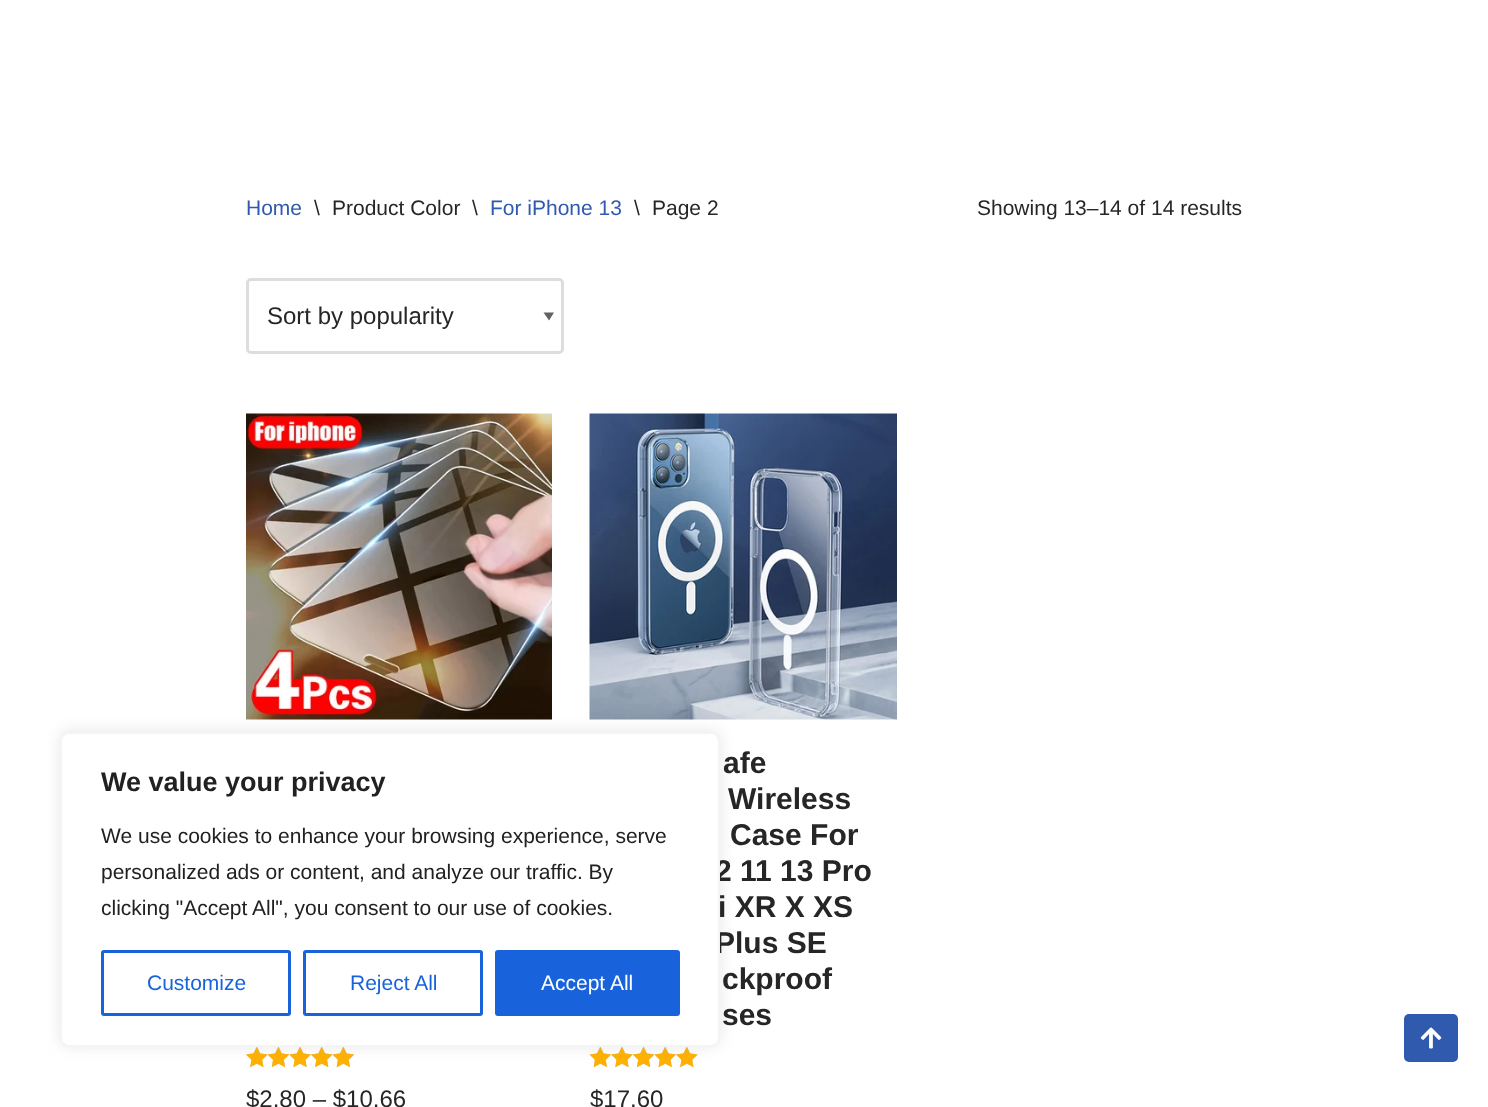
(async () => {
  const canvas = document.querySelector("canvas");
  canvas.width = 1488;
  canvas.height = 1107;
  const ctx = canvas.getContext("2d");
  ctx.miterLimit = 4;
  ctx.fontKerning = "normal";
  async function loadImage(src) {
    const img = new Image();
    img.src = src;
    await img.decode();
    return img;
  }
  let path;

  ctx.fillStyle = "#ffffff";
  ctx.fillRect(0, 0, 1488, 1107);
  ctx.fillStyle = "#626262";
  path = new Path2D("M554 312.5L549 320.5L543.5 312.5Z");
  ctx.fill(path);
  ctx.beginPath();
  ctx.roundRect(247.5, 279.5, 315, 73, 3.5);
  ctx.strokeStyle = "#dddddd";
  ctx.lineWidth = 3;
  ctx.stroke();
  ctx.drawImage(await loadImage("img/1.png"), 246, 413, 306, 307);
  ctx.drawImage(await loadImage("img/2.png"), 246, 1047, 108, 20);
  ctx.drawImage(await loadImage("img/3.png"), 246, 1047, 108, 21);
  ctx.drawImage(await loadImage("img/4.png"), 589, 413, 308, 307);
  ctx.drawImage(await loadImage("img/5.png"), 590, 1047, 108, 20);
  ctx.drawImage(await loadImage("img/6.png"), 590, 1047, 108, 21);
  ctx.fillStyle = "#2f5aae";
  ctx.beginPath();
  ctx.roundRect(1404, 1014, 54, 48, 5);
  ctx.fill();
  ctx.drawImage(await loadImage("img/7.png"), 1420, 1027, 22, 22);
  ctx.fillStyle = "rgba(172, 171, 171, 0.3)";
  ctx.filter = "blur(7.5px)";
  ctx.beginPath();
  ctx.roundRect(60, 731, 660, 315, 9);
  ctx.fill();
  ctx.filter = "none";
  ctx.font = "21px Liberation Sans";
  ctx.fillStyle = "#2f5aae";
  ctx.fillText("Home", 246, 215);
  ctx.fillStyle = "#272626";
  for (const [text, x, y] of [
    ["\\", 314, 215],
    ["Product Color", 332, 215],
    ["\\", 472, 215],
  ]) {
    ctx.fillText(text, x, y);
  }
  ctx.fillStyle = "#2f5aae";
  ctx.fillText("For iPhone 13", 490, 215);
  ctx.fillStyle = "#272626";
  for (const [text, x, y] of [
    ["\\", 634, 215],
    ["Page 2", 652, 215],
    ["Showing 13–14 of 14 results", 977, 215],
  ]) {
    ctx.fillText(text, x, y);
  }
  ctx.font = "24px Liberation Sans";
  ctx.fillText("Sort by popularity", 267, 324);
  ctx.fillText("$2.80 – $10.66", 246, 1107);
  ctx.font = "bold 30px Liberation Sans";
  for (const [text, x, y] of [
    ["afe", 723, 773],
    ["Wireless", 728, 809],
    ["Case For", 730, 845],
    ["2 11 13 Pro", 715, 881],
    ["i XR X XS", 718, 917],
    ["Plus SE", 715, 953],
    ["ckproof", 722, 989],
    ["ses", 722, 1025],
  ]) {
    ctx.fillText(text, x, y);
  }
  ctx.font = "24px Liberation Sans";
  ctx.fillText("$17.60", 590, 1107);
  ctx.fillStyle = "#ffffff";
  ctx.beginPath();
  ctx.roundRect(61, 733, 658, 313, 8);
  ctx.fill();
  ctx.strokeStyle = "#f4f4f4";
  ctx.lineWidth = 2;
  ctx.stroke();
  ctx.font = "bold 27px Liberation Sans";
  ctx.fillStyle = "#212121";
  ctx.fillText("We value your privacy", 101, 791);
  ctx.font = "21px Liberation Sans";
  for (const [text, x, y] of [
    ["We use cookies to enhance your browsing experience, serve", 101, 843],
    ["personalized ads or content, and analyze our traffic. By", 101, 879],
    ["clicking \"Accept All\", you consent to our use of cookies.", 101, 915],
  ]) {
    ctx.fillText(text, x, y);
  }
  ctx.beginPath();
  ctx.roundRect(102.5, 951.5, 187, 63, 1.5);
  ctx.strokeStyle = "#1863dc";
  ctx.lineWidth = 3;
  ctx.stroke();
  ctx.fillStyle = "#1863dc";
  ctx.fillText("Customize", 147, 990);
  ctx.beginPath();
  ctx.roundRect(304.5, 951.5, 177, 63, 1.5);
  ctx.stroke();
  ctx.fillText("Reject All", 350, 990);
  ctx.beginPath();
  ctx.roundRect(496.5, 951.5, 182, 63, 1.5);
  ctx.fill();
  ctx.stroke();
  ctx.fillStyle = "#ffffff";
  ctx.fillText("Accept All", 541, 990);
})();
